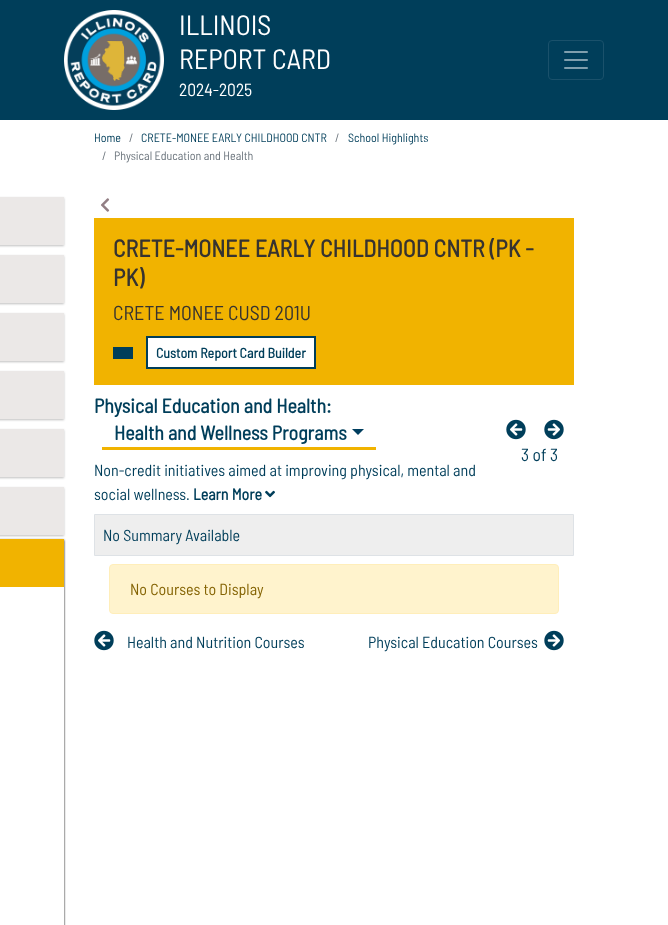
(async () => {
  const canvas = document.querySelector("canvas");
  canvas.width = 668;
  canvas.height = 925;
  const ctx = canvas.getContext("2d");
  ctx.miterLimit = 4;
  ctx.fontKerning = "normal";
  async function loadImage(src) {
    const img = new Image();
    img.src = src;
    await img.decode();
    return img;
  }
  let path;

  ctx.fillStyle = "#ffffff";
  ctx.fillRect(0, 0, 668, 925);
  ctx.fillStyle = "#003e5a";
  ctx.fillRect(0, 0, 668, 120);
  ctx.drawImage(await loadImage("img/1.png"), 64, 10, 100, 100);
  ctx.beginPath();
  ctx.roundRect(548.5, 40.5, 55, 39, 3.5);
  ctx.strokeStyle = "#1a516b";
  ctx.stroke();
  ctx.drawImage(await loadImage("img/2.png"), 564, 51, 24, 18);
  ctx.fillStyle = "rgba(0, 0, 0, 0.25)";
  ctx.filter = "blur(1px)";
  ctx.beginPath();
  ctx.rect(-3, 198, 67, 48);
  ctx.fill();
  ctx.filter = "none";
  ctx.fillStyle = "#ebe8e7";
  ctx.fillRect(0, 197, 64, 48);
  ctx.fillStyle = "rgba(0, 0, 0, 0.25)";
  ctx.filter = "blur(1px)";
  ctx.beginPath();
  ctx.rect(-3, 256, 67, 48);
  ctx.fill();
  ctx.filter = "none";
  ctx.fillStyle = "#ebe8e7";
  ctx.fillRect(0, 255, 64, 48);
  ctx.fillStyle = "rgba(0, 0, 0, 0.25)";
  ctx.filter = "blur(1px)";
  ctx.beginPath();
  ctx.rect(-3, 314, 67, 48);
  ctx.fill();
  ctx.filter = "none";
  ctx.fillStyle = "#ebe8e7";
  ctx.fillRect(0, 313, 64, 48);
  ctx.fillStyle = "rgba(0, 0, 0, 0.25)";
  ctx.filter = "blur(1px)";
  ctx.beginPath();
  ctx.rect(-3, 372, 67, 48);
  ctx.fill();
  ctx.filter = "none";
  ctx.fillStyle = "#ebe8e7";
  ctx.fillRect(0, 371, 64, 48);
  ctx.fillStyle = "rgba(0, 0, 0, 0.25)";
  ctx.filter = "blur(1px)";
  ctx.beginPath();
  ctx.rect(-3, 430, 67, 48);
  ctx.fill();
  ctx.filter = "none";
  ctx.fillStyle = "#ebe8e7";
  ctx.fillRect(0, 429, 64, 48);
  ctx.fillStyle = "rgba(0, 0, 0, 0.25)";
  ctx.filter = "blur(1px)";
  ctx.beginPath();
  ctx.rect(-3, 488, 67, 48);
  ctx.fill();
  ctx.filter = "none";
  ctx.fillStyle = "#ebe8e7";
  ctx.fillRect(0, 487, 64, 48);
  ctx.save();
  path = new Path2D("M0 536H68V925H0ZM-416 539H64V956H-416Z");
  ctx.clip(path, "evenodd");
  ctx.fillStyle = "#000000";
  ctx.filter = "blur(1px)";
  ctx.beginPath();
  ctx.rect(-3, 540, 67, 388);
  ctx.fill();
  ctx.filter = "none";
  ctx.restore();
  ctx.fillStyle = "#f1b300";
  ctx.fillRect(0, 539, 64, 48);
  ctx.drawImage(await loadImage("img/3.png"), 101, 198, 9, 14);
  ctx.strokeStyle = "#f1b300";
  ctx.lineWidth = 4;
  ctx.strokeRect(96, 220, 476, 163);
  ctx.fillRect(98, 222, 472, 159);
  ctx.fillStyle = "#003e5a";
  ctx.fillRect(113, 347, 20, 12);
  ctx.fillStyle = "#ffffff";
  ctx.beginPath();
  ctx.rect(147, 337, 168, 31);
  ctx.fill();
  ctx.strokeStyle = "#003e5a";
  ctx.lineWidth = 2;
  ctx.stroke();
  ctx.fillStyle = "#f1b300";
  ctx.fillRect(102, 447, 274, 3);
  ctx.fillStyle = "#003e5f";
  path = new Path2D("M352 429H364L358 435Z");
  ctx.fill(path);
  ctx.drawImage(await loadImage("img/4.png"), 506, 419, 20, 21);
  ctx.drawImage(await loadImage("img/5.png"), 544, 419, 20, 21);
  ctx.drawImage(await loadImage("img/6.png"), 265, 490, 10, 8);
  ctx.fillStyle = "#eeeeee";
  ctx.beginPath();
  ctx.rect(94.5, 514.5, 479, 41);
  ctx.fill();
  ctx.strokeStyle = "#dee2e6";
  ctx.lineWidth = 1;
  ctx.stroke();
  ctx.fillStyle = "#fff3cd";
  ctx.beginPath();
  ctx.roundRect(109.5, 564.5, 449, 49, 3.5);
  ctx.fill();
  ctx.strokeStyle = "#ffeeba";
  ctx.stroke();
  ctx.drawImage(await loadImage("img/4.png"), 94, 630, 20, 21);
  ctx.drawImage(await loadImage("img/5.png"), 544, 630, 20, 21);
  ctx.font = "28px Barlow Semi Condensed";
  ctx.fillStyle = "#ffffff";
  ctx.fillText("ILLINOIS", 179, 35);
  ctx.fillText("REPORT CARD", 179, 69);
  ctx.font = "17.5px Barlow Semi Condensed";
  ctx.fillText("2024-2025", 179, 96);
  ctx.font = "12px Barlow Semi Condensed";
  ctx.fillStyle = "#003e5a";
  ctx.fillText("Home", 94, 142);
  ctx.fillStyle = "#6c757d";
  ctx.fillText("/", 129, 142);
  ctx.fillStyle = "#003e5a";
  ctx.fillText("CRETE-MONEE EARLY CHILDHOOD CNTR", 141, 142);
  ctx.fillStyle = "#6c757d";
  ctx.fillText("/", 335, 142);
  ctx.fillStyle = "#003e5a";
  ctx.fillText("School Highlights", 348, 142);
  ctx.fillStyle = "#6c757d";
  ctx.fillText("/", 102, 160);
  ctx.fillText("Physical Education and Health", 114, 160);
  ctx.font = "bold 24px Barlow Semi Condensed";
  ctx.fillStyle = "#363330";
  ctx.fillText("CRETE-MONEE EARLY CHILDHOOD CNTR (PK -", 113, 257);
  ctx.fillText("PK)", 113, 286);
  ctx.font = "20px Barlow Semi Condensed";
  ctx.fillText("CRETE MONEE CUSD 201U", 113, 320);
  ctx.font = "bold 14px Barlow Semi Condensed";
  ctx.fillStyle = "#003e5a";
  ctx.fillText("Custom Report Card Builder", 156, 358);
  ctx.font = "bold 20px Barlow Semi Condensed";
  ctx.fillText("Physical Education and Health:", 94, 413);
  ctx.fillText("Health and Wellness Programs", 114, 440);
  ctx.font = "17.5px Barlow Semi Condensed";
  ctx.fillText("3 of 3", 521, 461);
  ctx.font = "16px Barlow Semi Condensed";
  ctx.fillText("Non-credit initiatives aimed at improving physical, mental and", 94, 476);
  ctx.fillText("social wellness.", 94, 500);
  ctx.font = "bold 16px Barlow Semi Condensed";
  ctx.fillText("Learn More", 193, 500);
  ctx.font = "16px Barlow Semi Condensed";
  ctx.fillText("No Summary Available", 103, 541);
  ctx.fillStyle = "#856404";
  ctx.fillText("No Courses to Display", 130, 595);
  ctx.fillStyle = "#003e5a";
  ctx.fillText("Health and Nutrition Courses", 127, 648);
  ctx.fillText("Physical Education Courses", 368, 648);
})();
